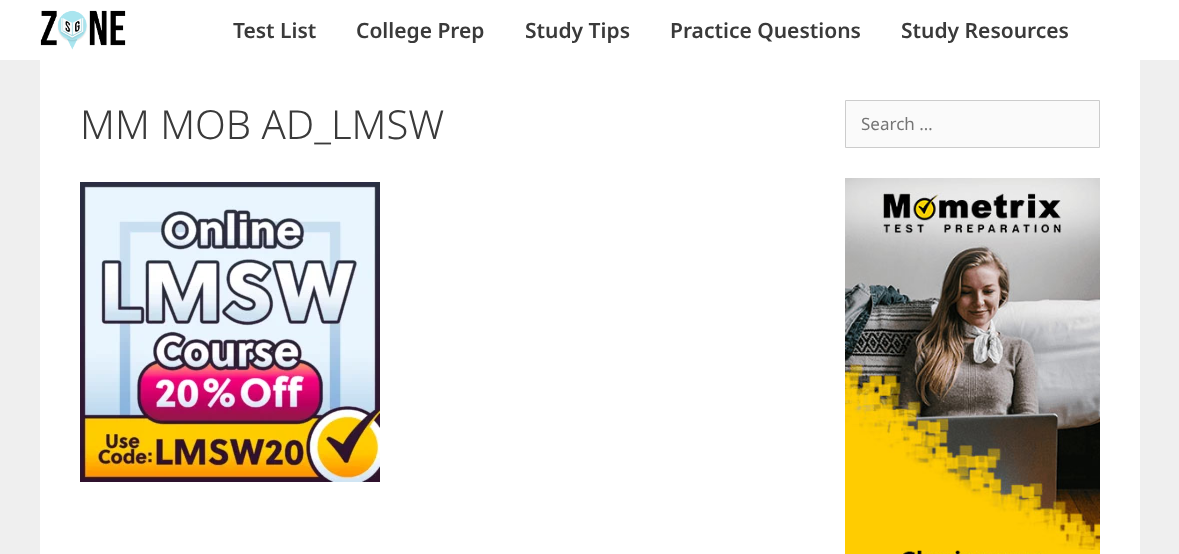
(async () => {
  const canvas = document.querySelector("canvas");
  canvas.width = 1179;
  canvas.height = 554;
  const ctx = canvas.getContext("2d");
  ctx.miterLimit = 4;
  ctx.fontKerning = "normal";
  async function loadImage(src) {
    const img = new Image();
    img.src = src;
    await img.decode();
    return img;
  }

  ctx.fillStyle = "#efefef";
  ctx.fillRect(0, 0, 1179, 554);
  ctx.fillStyle = "#ffffff";
  ctx.fillRect(0, 0, 1179, 60);
  ctx.drawImage(await loadImage("img/1.png"), 40, 10, 86, 40);
  ctx.fillRect(40, 60, 1100, 494);
  ctx.drawImage(await loadImage("img/2.png"), 80, 182, 300, 300);
  ctx.fillStyle = "#fafafa";
  ctx.beginPath();
  ctx.rect(845.5, 100.5, 254, 47);
  ctx.fill();
  ctx.strokeStyle = "#cccccc";
  ctx.stroke();
  ctx.drawImage(await loadImage("img/3.png"), 845, 178, 255, 376);
  ctx.font = "600 21px Noto Sans";
  ctx.fillStyle = "#3a3a3a";
  for (const [text, x, y] of [
    ["Test List", 233, 38],
    ["College Prep", 356, 38],
    ["Study Tips", 525, 38],
    ["Practice Questions", 670, 38],
    ["Study Resources", 901, 38],
  ]) {
    ctx.fillText(text, x, y);
  }
  ctx.font = "300 40px Noto Sans";
  ctx.fillText("MM MOB AD_LMSW", 80, 139);
  ctx.font = "17px Noto Sans";
  ctx.fillStyle = "#757575";
  ctx.fillText("Search …", 861, 130);
})();
